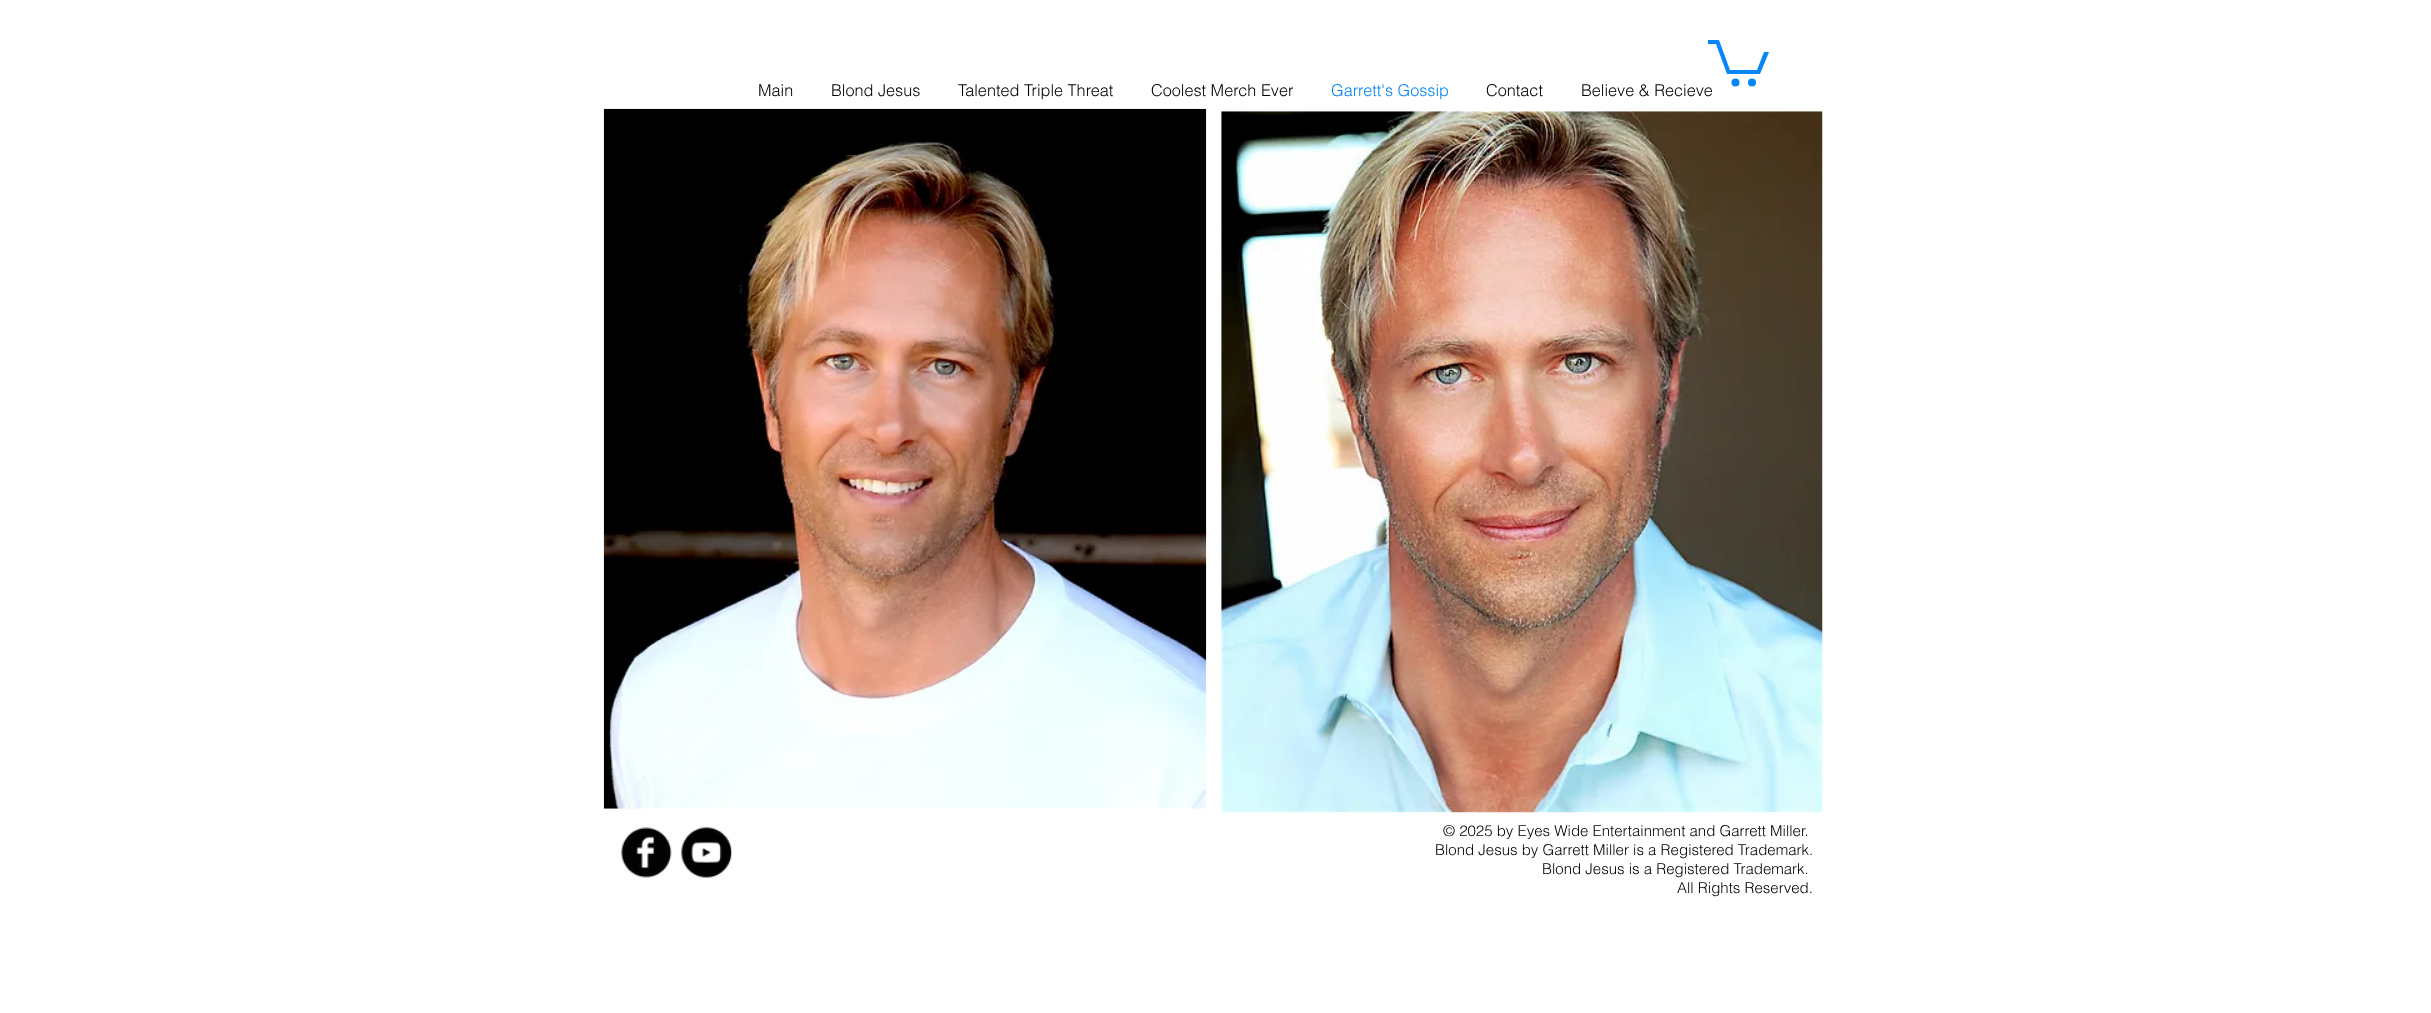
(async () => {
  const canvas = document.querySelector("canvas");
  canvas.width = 2431;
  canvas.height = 1013;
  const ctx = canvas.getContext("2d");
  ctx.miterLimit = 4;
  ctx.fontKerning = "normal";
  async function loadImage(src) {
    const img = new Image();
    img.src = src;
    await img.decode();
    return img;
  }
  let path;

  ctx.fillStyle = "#ffffff";
  ctx.fillRect(0, 0, 2431, 1013);
  ctx.fillStyle = "#0787f7";
  path = new Path2D("M1769 52L1760 74H1727L1716 44H1708V40H1719L1730 70H1757L1764 52");
  ctx.fill(path);
  ctx.beginPath();
  ctx.arc(1752, 82.5, 4, 0, Math.PI * 2);
  ctx.fill();
  ctx.beginPath();
  ctx.arc(1735.5, 82.5, 4, 0, Math.PI * 2);
  ctx.fill();
  ctx.drawImage(await loadImage("img/1.png"), 603, 108, 604, 701);
  ctx.drawImage(await loadImage("img/2.png"), 1221, 111, 602, 702);
  ctx.drawImage(await loadImage("img/3.png"), 621, 827, 51, 51);
  ctx.drawImage(await loadImage("img/4.png"), 681, 827, 51, 51);
  ctx.font = "300 16.25px helvetica";
  ctx.fillStyle = "#000000";
  for (const [text, x, y] of [
    ["Main", 758, 96],
    ["Blond Jesus", 831, 96],
    ["Talented Triple Threat", 958, 96],
    ["Coolest Merch Ever", 1151, 96],
  ]) {
    ctx.fillText(text, x, y);
  }
  ctx.fillStyle = "#0787f7";
  ctx.fillText("Garrett's Gossip", 1331, 96);
  ctx.fillStyle = "#000000";
  ctx.fillText("Contact", 1486, 96);
  ctx.fillText("Believe & Recieve", 1581, 96);
  ctx.font = "300 15px helvetica";
  for (const [text, x, y] of [
    ["© 2025 by Eyes Wide Entertainment and Garrett Miller.", 1443, 836],
    ["Blond Jesus by Garrett Miller is a Registered Trademark.", 1435, 855],
    ["Blond Jesus is a Registered Trademark.", 1542, 874],
    ["All Rights Reserved.", 1677, 893],
  ]) {
    ctx.fillText(text, x, y);
  }
})();
